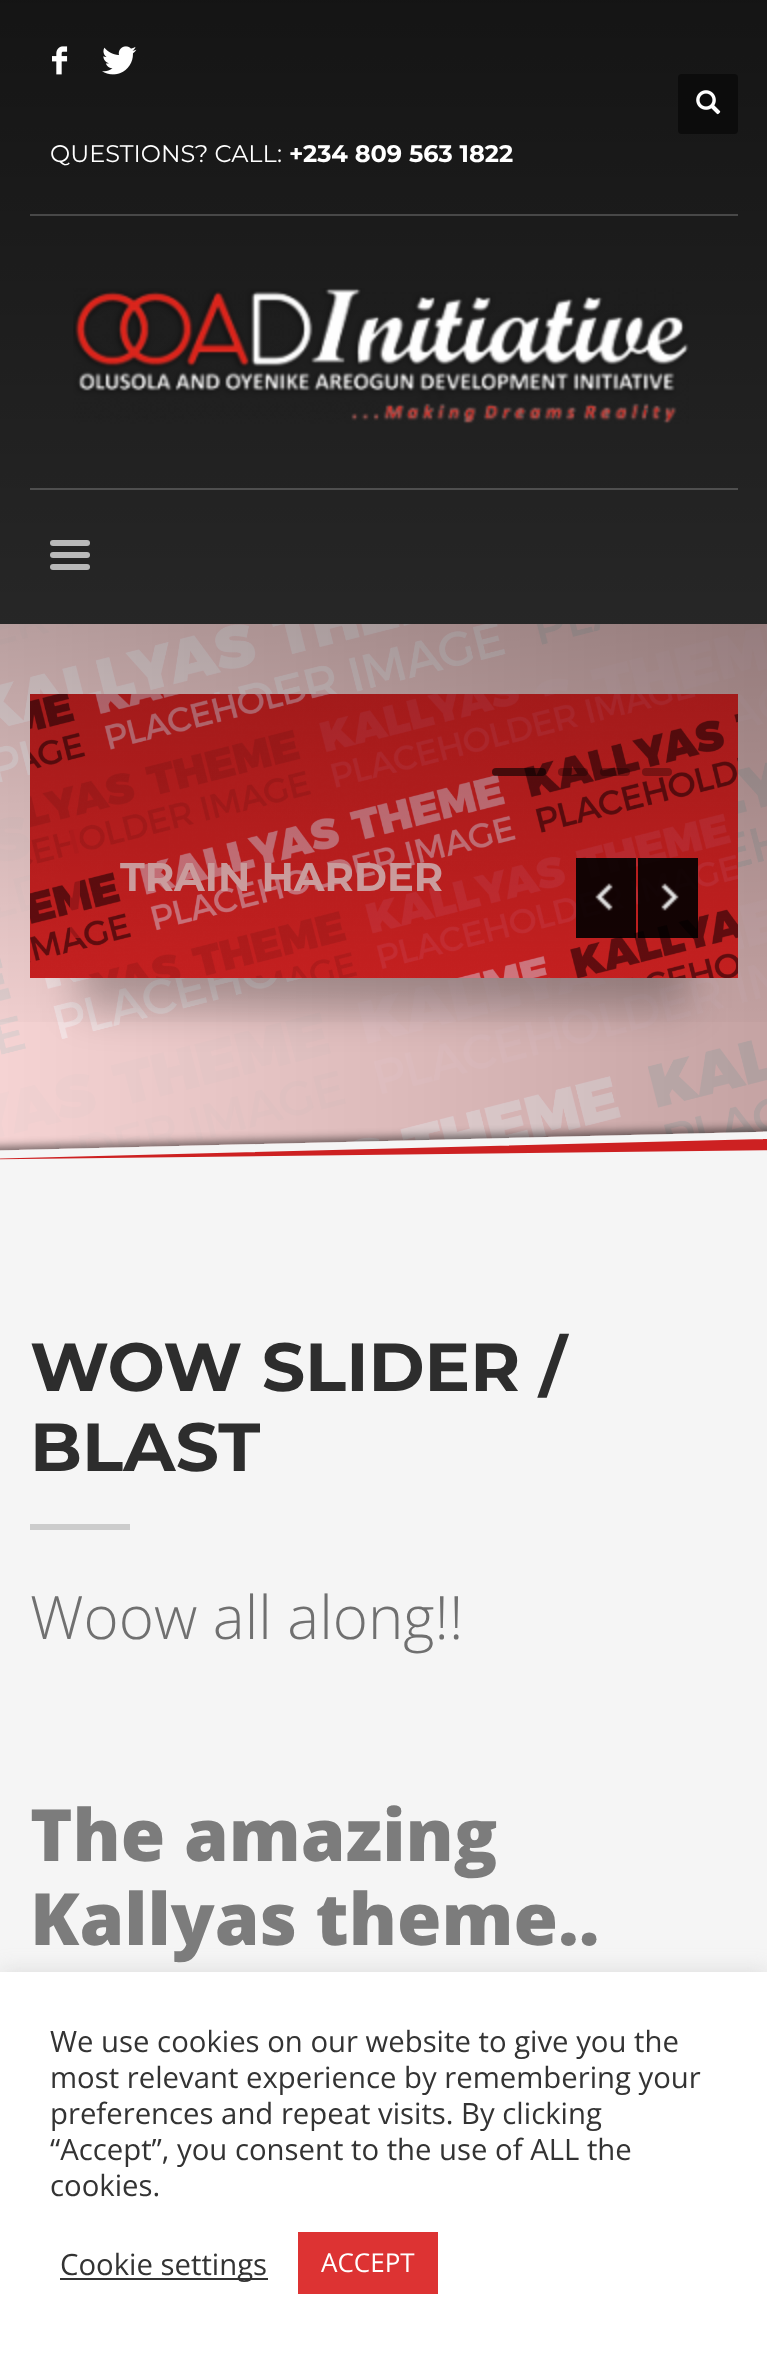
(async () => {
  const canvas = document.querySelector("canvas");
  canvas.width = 767;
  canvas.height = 2354;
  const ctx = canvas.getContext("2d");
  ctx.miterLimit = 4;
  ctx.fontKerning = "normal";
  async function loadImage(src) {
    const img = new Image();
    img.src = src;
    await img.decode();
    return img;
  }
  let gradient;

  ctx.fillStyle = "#f5f5f5";
  ctx.fillRect(0, 0, 767, 2354);
  ctx.fillStyle = "#333333";
  ctx.fillRect(0, 0, 767, 624);
  ctx.drawImage(await loadImage("img/5.png"), 0, 624, 767, 527);
  ctx.fillStyle = "rgba(0, 0, 0, 0.25)";
  ctx.filter = "blur(20px)";
  ctx.beginPath();
  ctx.rect(80, 824, 608, 184);
  ctx.fill();
  ctx.filter = "none";
  ctx.drawImage(await loadImage("img/6.png"), 30, 694, 708, 284);
  ctx.fillStyle = "rgba(0, 0, 0, 0.6)";
  ctx.beginPath();
  ctx.roundRect(492, 768, 54, 8, 4);
  ctx.fill();
  ctx.fillStyle = "rgba(0, 0, 0, 0.3)";
  ctx.beginPath();
  ctx.roundRect(558, 768, 30, 8, 4);
  ctx.fill();
  ctx.beginPath();
  ctx.roundRect(600, 768, 30, 8, 4);
  ctx.fill();
  ctx.fillStyle = "#901717";
  ctx.beginPath();
  ctx.roundRect(642, 768, 30, 8, 4);
  ctx.fill();
  ctx.fillStyle = "rgba(205, 33, 34, 0.65)";
  ctx.fillRect(70, 829, 10, 109);
  ctx.fillStyle = "rgba(0, 0, 0, 0.9)";
  ctx.fillRect(576, 858, 60, 80);
  ctx.drawImage(await loadImage("img/7.png"), 595, 883, 18, 28);
  ctx.fillRect(638, 858, 60, 80);
  ctx.drawImage(await loadImage("img/8.png"), 661, 883, 18, 28);
  ctx.drawImage(await loadImage("img/9.png"), 0, 1120, 767, 68);
  ctx.fillStyle = "#cccccc";
  ctx.fillRect(30, 1524, 100, 6);
  ctx.fillStyle = "rgba(172, 171, 171, 0.3)";
  ctx.filter = "blur(10px)";
  ctx.beginPath();
  ctx.rect(0, 1970, 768, 382);
  ctx.fill();
  ctx.filter = "none";
  for (const [x, y, w, h, color] of [
    [0, 1972, 767, 382, "#ffffff"],
    [60, 2278, 208, 2, "#333333"],
    [298, 2232, 140, 62, "#dd3333"],
  ]) {
    ctx.fillStyle = color;
    ctx.fillRect(x, y, w, h);
  }
  ctx.font = "bold 40px Montserrat";
  ctx.fillStyle = "#e1adae";
  ctx.fillText("TRAIN HARDER", 120, 891);
  gradient = ctx.createLinearGradient(384, 0, 384, 1060);
  gradient.addColorStop(0, "rgba(0, 0, 0, 0.6)");
  gradient.addColorStop(1, "rgba(0, 0, 0, 0)");
  ctx.fillStyle = gradient;
  ctx.fillRect(0, 0, 767, 1022);
  ctx.fillStyle = "#0c0c0c";
  ctx.beginPath();
  ctx.roundRect(678, 74, 60, 60, 4);
  ctx.fill();
  ctx.drawImage(await loadImage("img/1.png"), 696, 90, 25, 25);
  ctx.drawImage(await loadImage("img/3.png"), 102, 46, 35, 29);
  ctx.drawImage(await loadImage("img/2.png"), 52, 46, 16, 29);
  ctx.fillStyle = "#b9b9b9";
  ctx.beginPath();
  ctx.roundRect(50, 564, 40, 6, 3);
  ctx.fill();
  ctx.beginPath();
  ctx.roundRect(50, 552, 40, 6, 3);
  ctx.fill();
  ctx.beginPath();
  ctx.roundRect(50, 540, 40, 6, 3);
  ctx.fill();
  ctx.fillStyle = "#4f4f4f";
  ctx.fillRect(30, 488, 708, 2);
  ctx.drawImage(await loadImage("img/4.png"), 73, 288, 616, 136);
  ctx.fillStyle = "#484848";
  ctx.fillRect(30, 214, 708, 2);
  ctx.font = "bold 24px Montserrat";
  ctx.fillStyle = "#ffffff";
  ctx.fillText("+234 809 563 1822", 289, 162);
  ctx.font = "24px Montserrat";
  ctx.fillText("QUESTIONS? CALL:", 50, 162);
  ctx.font = "bold 68px Montserrat";
  ctx.fillStyle = "#2d2d2d";
  ctx.fillText("WOW SLIDER /", 30, 1391);
  ctx.fillText("BLAST", 30, 1471);
  ctx.font = "300 60px Open Sans";
  ctx.fillStyle = "#707070";
  ctx.fillText("Woow all along!!", 30, 1639);
  ctx.font = "800 72px Open Sans";
  ctx.fillStyle = "#7c7c7c";
  ctx.fillText("The amazing", 30, 1861);
  ctx.fillText("Kallyas theme..", 30, 1945);
  ctx.font = "29.3px Open Sans";
  ctx.fillStyle = "#333333";
  for (const [text, x, y] of [
    ["We use cookies on our website to give you the", 50, 2052],
    ["most relevant experience by remembering your", 50, 2088],
    ["preferences and repeat visits. By clicking", 50, 2124],
    ["“Accept”, you consent to the use of ALL the", 50, 2160],
    ["cookies.", 50, 2196],
    ["Cookie settings", 60, 2275],
  ]) {
    ctx.fillText(text, x, y);
  }
  ctx.font = "26px Open Sans";
  ctx.fillStyle = "#ffffff";
  ctx.fillText("ACCEPT", 321, 2272);
})();
